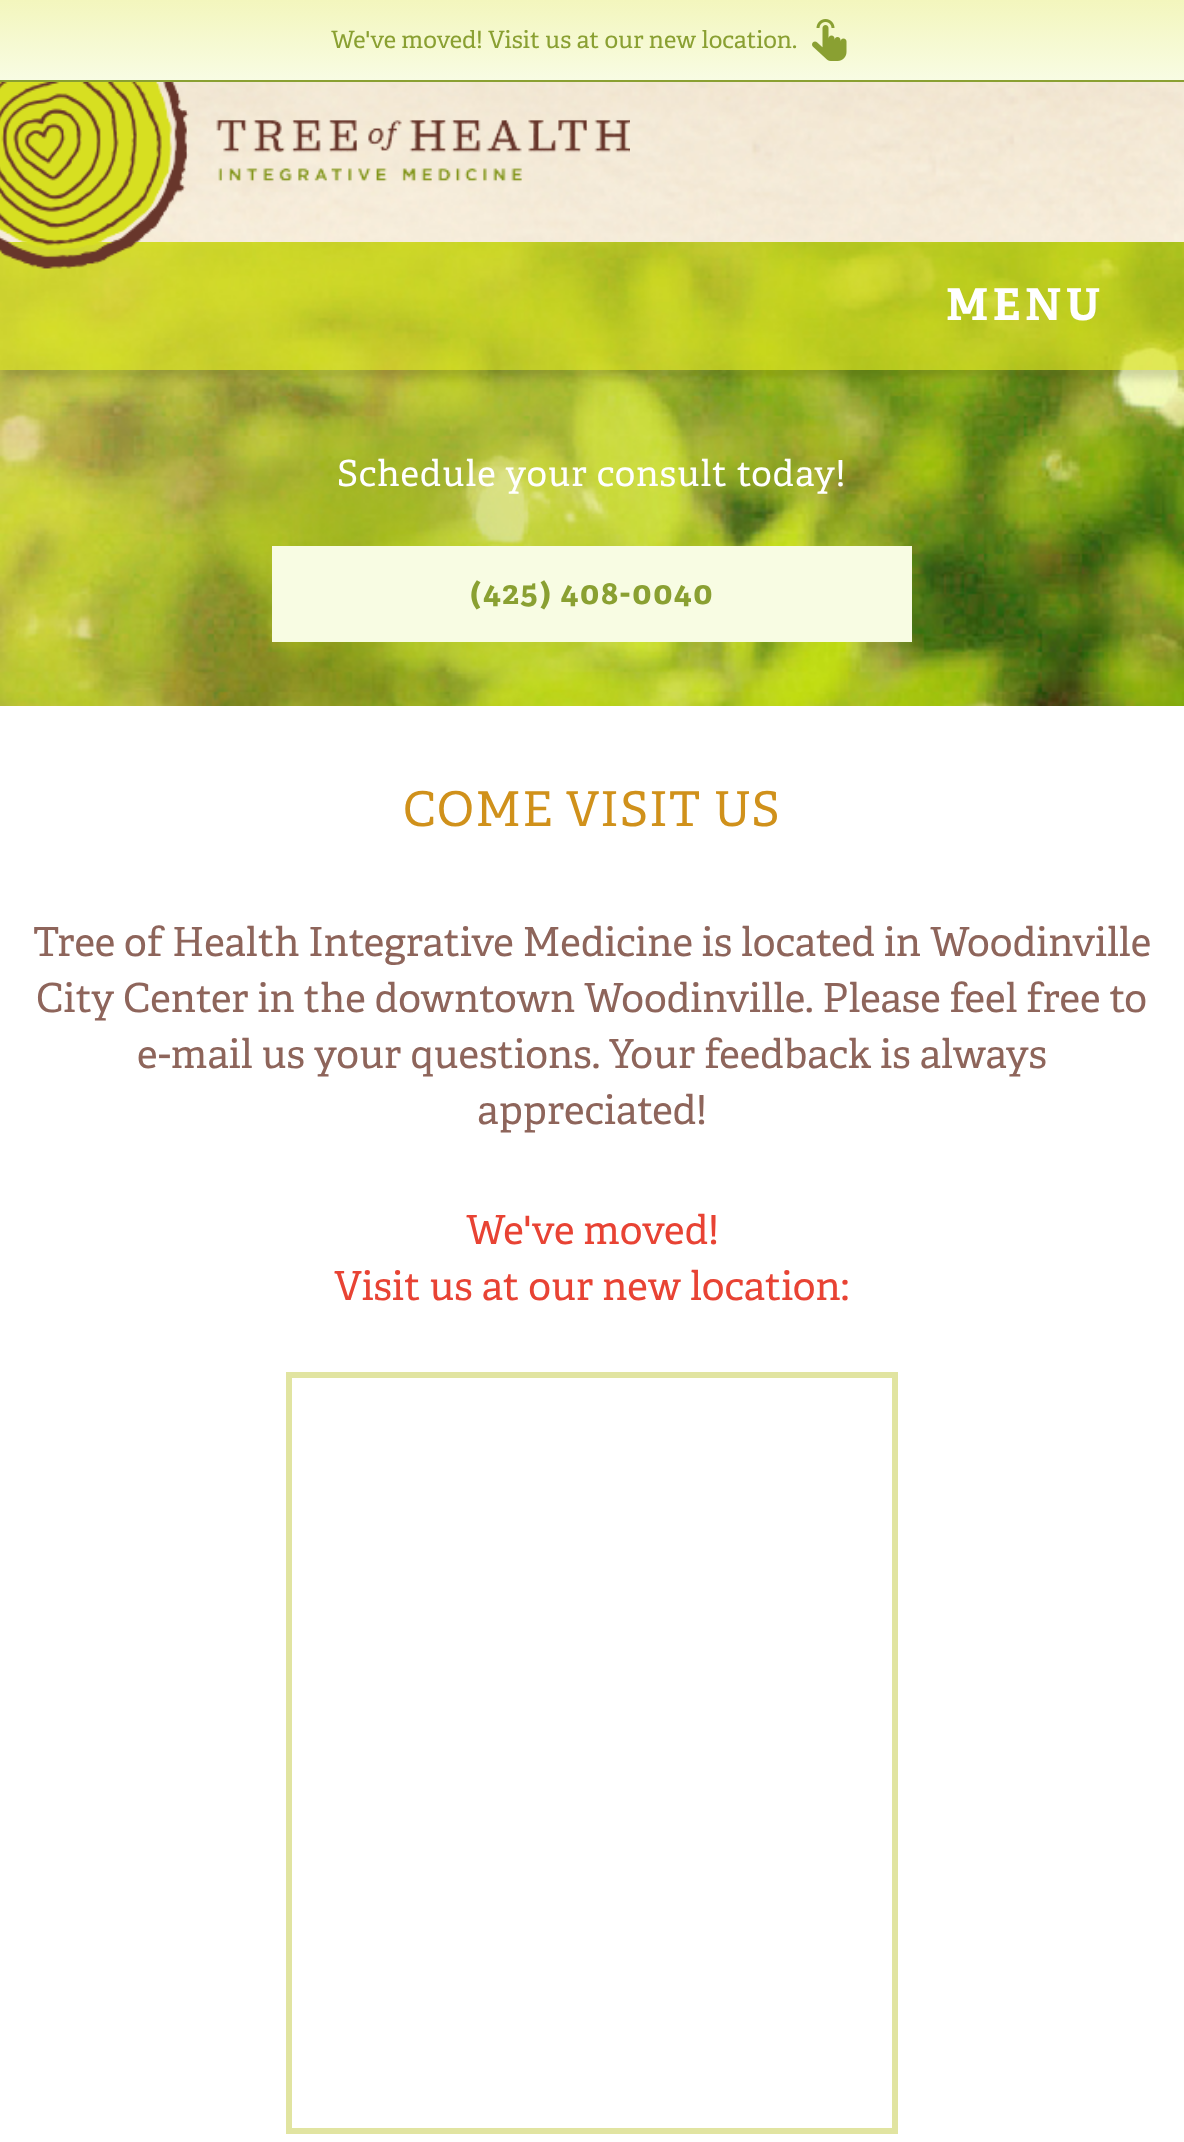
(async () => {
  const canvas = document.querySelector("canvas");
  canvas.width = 1184;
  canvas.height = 2142;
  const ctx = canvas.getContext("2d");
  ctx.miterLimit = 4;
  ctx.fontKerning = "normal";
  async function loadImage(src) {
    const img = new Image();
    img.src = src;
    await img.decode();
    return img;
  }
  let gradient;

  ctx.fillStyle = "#ffffff";
  ctx.fillRect(0, 0, 1184, 2142);
  gradient = ctx.createLinearGradient(592, 0, 592, 80);
  gradient.addColorStop(0, "#f3f6bd");
  gradient.addColorStop(1, "#f8fce3");
  ctx.fillStyle = gradient;
  ctx.fillRect(0, 0, 1184, 80);
  ctx.fillStyle = "#8aa032";
  ctx.fillRect(0, 80, 1184, 2);
  ctx.drawImage(await loadImage("img/1.png"), 812, 19, 35, 42);
  ctx.drawImage(await loadImage("img/2.png"), 0, 82, 1184, 160);
  ctx.drawImage(await loadImage("img/5.png"), 0, 370, 1184, 336);
  ctx.fillStyle = "rgba(0, 0, 0, 0.15)";
  ctx.filter = "blur(5px)";
  ctx.beginPath();
  ctx.rect(2, 254, 1180, 124);
  ctx.fill();
  ctx.filter = "none";
  ctx.drawImage(await loadImage("img/4.png"), 0, 242, 1184, 128);
  ctx.drawImage(await loadImage("img/3.png"), 0, 82, 630, 187);
  ctx.fillStyle = "#f8fce3";
  ctx.fillRect(272, 546, 640, 96);
  ctx.strokeStyle = "#e1e4a1";
  ctx.lineWidth = 6;
  ctx.strokeRect(289, 1375, 606, 756);
  ctx.font = "24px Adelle";
  ctx.fillStyle = "#8aa032";
  ctx.fillText("We've moved! Visit us at our new location.", 331, 48);
  ctx.letterSpacing = "4.5px";
  ctx.font = "bold 44px Adelle";
  ctx.fillStyle = "#ffffff";
  ctx.fillText("MENU", 946, 320);
  ctx.letterSpacing = "0.9px";
  ctx.font = "36px Adelle";
  ctx.fillText("Schedule your consult today!", 337, 486);
  ctx.letterSpacing = "1.6px";
  ctx.font = "bold 32px Adelle";
  ctx.fillStyle = "#8aa032";
  ctx.fillText("(425) 408-0040", 470, 604);
  ctx.letterSpacing = "1.25px";
  ctx.font = "48px Adelle";
  ctx.fillStyle = "#d0911b";
  ctx.fillText("COME VISIT US", 403, 826);
  ctx.letterSpacing = "0px";
  ctx.font = "40px Adelle";
  ctx.fillStyle = "#8e655b";
  for (const [text, x, y] of [
    ["Tree of Health Integrative Medicine is located in Woodinville", 33, 956],
    ["City Center in the downtown Woodinville. Please feel free to", 36, 1012],
    ["e-mail us your questions. Your feedback is always", 137, 1068],
    ["appreciated!", 477, 1124],
  ]) {
    ctx.fillText(text, x, y);
  }
  ctx.fillStyle = "#e84334";
  ctx.fillText("We've moved!", 466, 1244);
  ctx.fillText("Visit us at our new location:", 334, 1300);
})();
